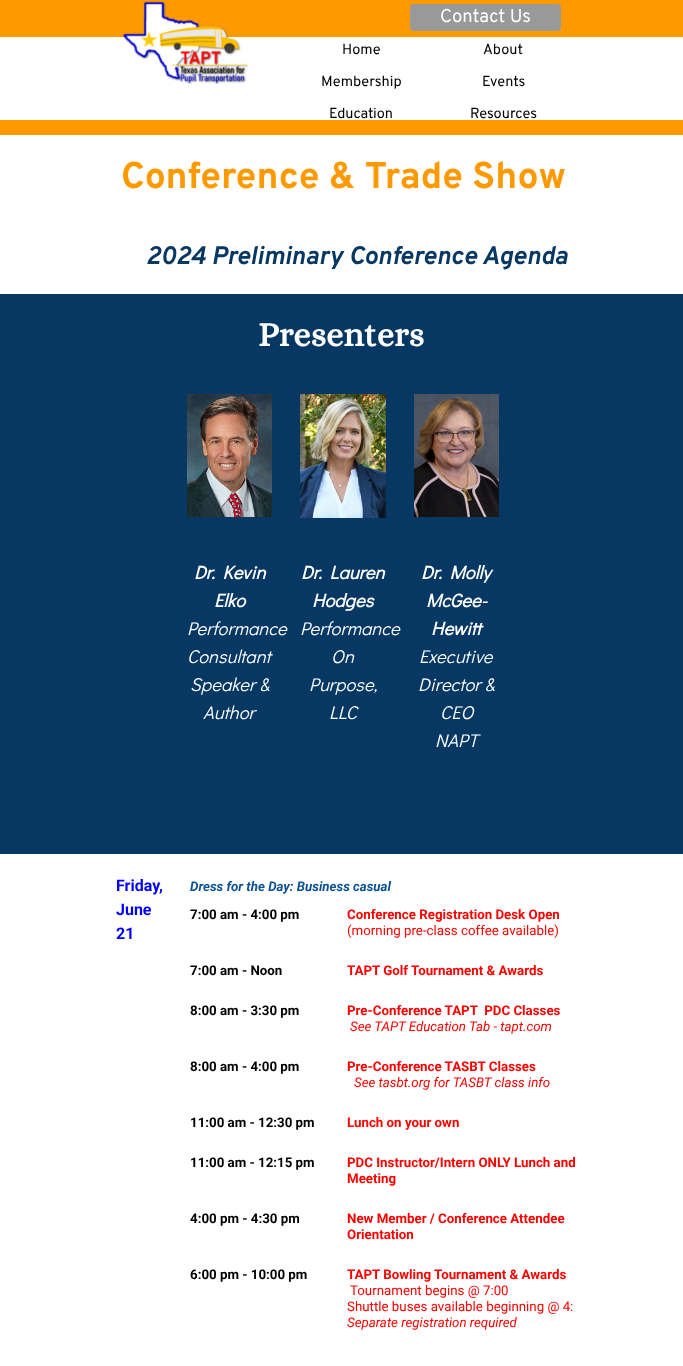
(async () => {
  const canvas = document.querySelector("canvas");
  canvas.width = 683;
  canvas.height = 1366;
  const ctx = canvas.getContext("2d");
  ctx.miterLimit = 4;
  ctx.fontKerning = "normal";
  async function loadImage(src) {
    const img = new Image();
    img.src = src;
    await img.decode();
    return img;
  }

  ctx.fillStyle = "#ffffff";
  ctx.fillRect(0, 0, 683, 1366);
  ctx.drawImage(await loadImage("img/1.png"), 0, 0, 683, 135);
  ctx.drawImage(await loadImage("img/2.png"), 122, 1, 127, 84);
  ctx.fillStyle = "#999999";
  ctx.beginPath();
  ctx.roundRect(410, 4, 151, 27, 4);
  ctx.fill();
  ctx.fillStyle = "#073763";
  ctx.fillRect(0, 294, 683, 560);
  ctx.drawImage(await loadImage("img/3.png"), 187, 394, 85, 123);
  ctx.drawImage(await loadImage("img/4.png"), 300, 394, 86, 124);
  ctx.drawImage(await loadImage("img/5.png"), 414, 394, 85, 123);
  ctx.font = "18.5px Overpass";
  ctx.fillStyle = "#ffffff";
  ctx.fillText("Contact Us", 440, 22);
  ctx.font = "14.5px Overpass";
  ctx.fillStyle = "#000000";
  for (const [text, x, y] of [
    ["Home", 342, 54],
    ["About", 483, 54],
    ["Membership", 321, 86],
    ["Events", 482, 86],
    ["Education", 329, 118],
    ["Resources", 470, 118],
  ]) {
    ctx.fillText(text, x, y);
  }
  ctx.font = "bold 37.25px Overpass";
  ctx.fillStyle = "#ff9900";
  ctx.fillText("Conference & Trade Show", 121, 188);
  ctx.font = "italic bold 25.4px Overpass";
  ctx.fillStyle = "#073763";
  ctx.fillText("2024 Preliminary Conference Agenda", 146, 264);
  ctx.font = "bold 34.5px Alice";
  ctx.fillStyle = "#ffffff";
  ctx.fillText("Presenters", 258, 346);
  ctx.font = "italic bold 18.5px Didact Gothic";
  ctx.fillText("Dr. Kevin", 194, 579);
  ctx.fillText("Elko", 214, 607);
  ctx.font = "italic 18.5px Didact Gothic";
  for (const [text, x, y] of [
    ["Performance", 187, 635],
    ["Consultant", 187, 663],
    ["Speaker &", 190, 691],
    ["Author", 203, 719],
  ]) {
    ctx.fillText(text, x, y);
  }
  ctx.font = "italic bold 18.5px Didact Gothic";
  ctx.fillText("Dr. Lauren", 301, 579);
  ctx.fillText("Hodges", 312, 607);
  ctx.font = "italic 18.5px Didact Gothic";
  for (const [text, x, y] of [
    ["Performance", 300, 635],
    ["On", 331, 663],
    ["Purpose,", 309, 691],
    ["LLC", 329, 719],
  ]) {
    ctx.fillText(text, x, y);
  }
  ctx.font = "italic bold 18.5px Didact Gothic";
  for (const [text, x, y] of [
    ["Dr. Molly", 421, 579],
    ["McGee-", 426, 607],
    ["Hewitt", 431, 635],
  ]) {
    ctx.fillText(text, x, y);
  }
  ctx.font = "italic 18.5px Didact Gothic";
  for (const [text, x, y] of [
    ["Executive", 419, 663],
    ["Director &", 418, 691],
    ["CEO", 440, 719],
    ["NAPT", 435, 747],
  ]) {
    ctx.fillText(text, x, y);
  }
  ctx.font = "bold 16px Roboto";
  ctx.fillStyle = "#0000ff";
  for (const [text, x, y] of [
    ["Friday,", 116, 891],
    ["June", 116, 915],
    ["21", 116, 939],
  ]) {
    ctx.fillText(text, x, y);
  }
  ctx.font = "italic bold 13.3px Roboto";
  ctx.fillStyle = "#0b5394";
  ctx.fillText("Dress for the Day: Business casual", 190, 891);
  ctx.font = "bold 13.3px Roboto";
  ctx.fillStyle = "#000000";
  ctx.fillText("7:00 am - 4:00 pm", 190, 919);
  ctx.fillStyle = "#ff0000";
  ctx.fillText("Conference Registration Desk Open", 347, 919);
  ctx.font = "13.3px Roboto";
  ctx.fillText("(morning pre-class coffee available)", 347, 935);
  ctx.font = "bold 13.3px Roboto";
  ctx.fillStyle = "#000000";
  ctx.fillText("7:00 am - Noon", 190, 975);
  ctx.fillStyle = "#ff0000";
  ctx.fillText("TAPT Golf Tournament & Awards", 347, 975);
  ctx.fillStyle = "#000000";
  ctx.fillText("8:00 am - 3:30 pm", 190, 1015);
  ctx.fillStyle = "#ff0000";
  ctx.fillText("Pre-Conference TAPT  PDC Classes", 347, 1015);
  ctx.font = "italic 13.3px Roboto";
  ctx.fillText("See TAPT Education Tab - tapt.com", 350, 1031);
  ctx.font = "bold 13.3px Roboto";
  ctx.fillStyle = "#000000";
  ctx.fillText("8:00 am - 4:00 pm", 190, 1071);
  ctx.fillStyle = "#ff0000";
  ctx.fillText("Pre-Conference TASBT Classes", 347, 1071);
  ctx.font = "italic 13.3px Roboto";
  ctx.fillText("See tasbt.org for TASBT class info", 354, 1087);
  ctx.font = "bold 13.3px Roboto";
  ctx.fillStyle = "#000000";
  ctx.fillText("11:00 am - 12:30 pm", 190, 1127);
  ctx.fillStyle = "#ff0000";
  ctx.fillText("Lunch on your own", 347, 1127);
  ctx.fillStyle = "#000000";
  ctx.fillText("11:00 am - 12:15 pm", 190, 1167);
  ctx.fillStyle = "#ff0000";
  ctx.fillText("PDC Instructor/Intern ONLY Lunch and", 347, 1167);
  ctx.fillText("Meeting", 347, 1183);
  ctx.fillStyle = "#000000";
  ctx.fillText("4:00 pm - 4:30 pm", 190, 1223);
  ctx.fillStyle = "#ff0000";
  ctx.fillText("New Member / Conference Attendee", 347, 1223);
  ctx.fillText("Orientation", 347, 1239);
  ctx.fillStyle = "#000000";
  ctx.fillText("6:00 pm - 10:00 pm", 190, 1279);
  ctx.fillStyle = "#ff0000";
  ctx.fillText("TAPT Bowling Tournament & Awards", 347, 1279);
  ctx.font = "13.3px Roboto";
  ctx.fillText("Tournament begins @ 7:00", 350, 1295);
  ctx.fillText("Shuttle buses available beginning @ 4:", 347, 1311);
  ctx.font = "italic 13.3px Roboto";
  ctx.fillText("Separate registration required", 347, 1327);
})();
